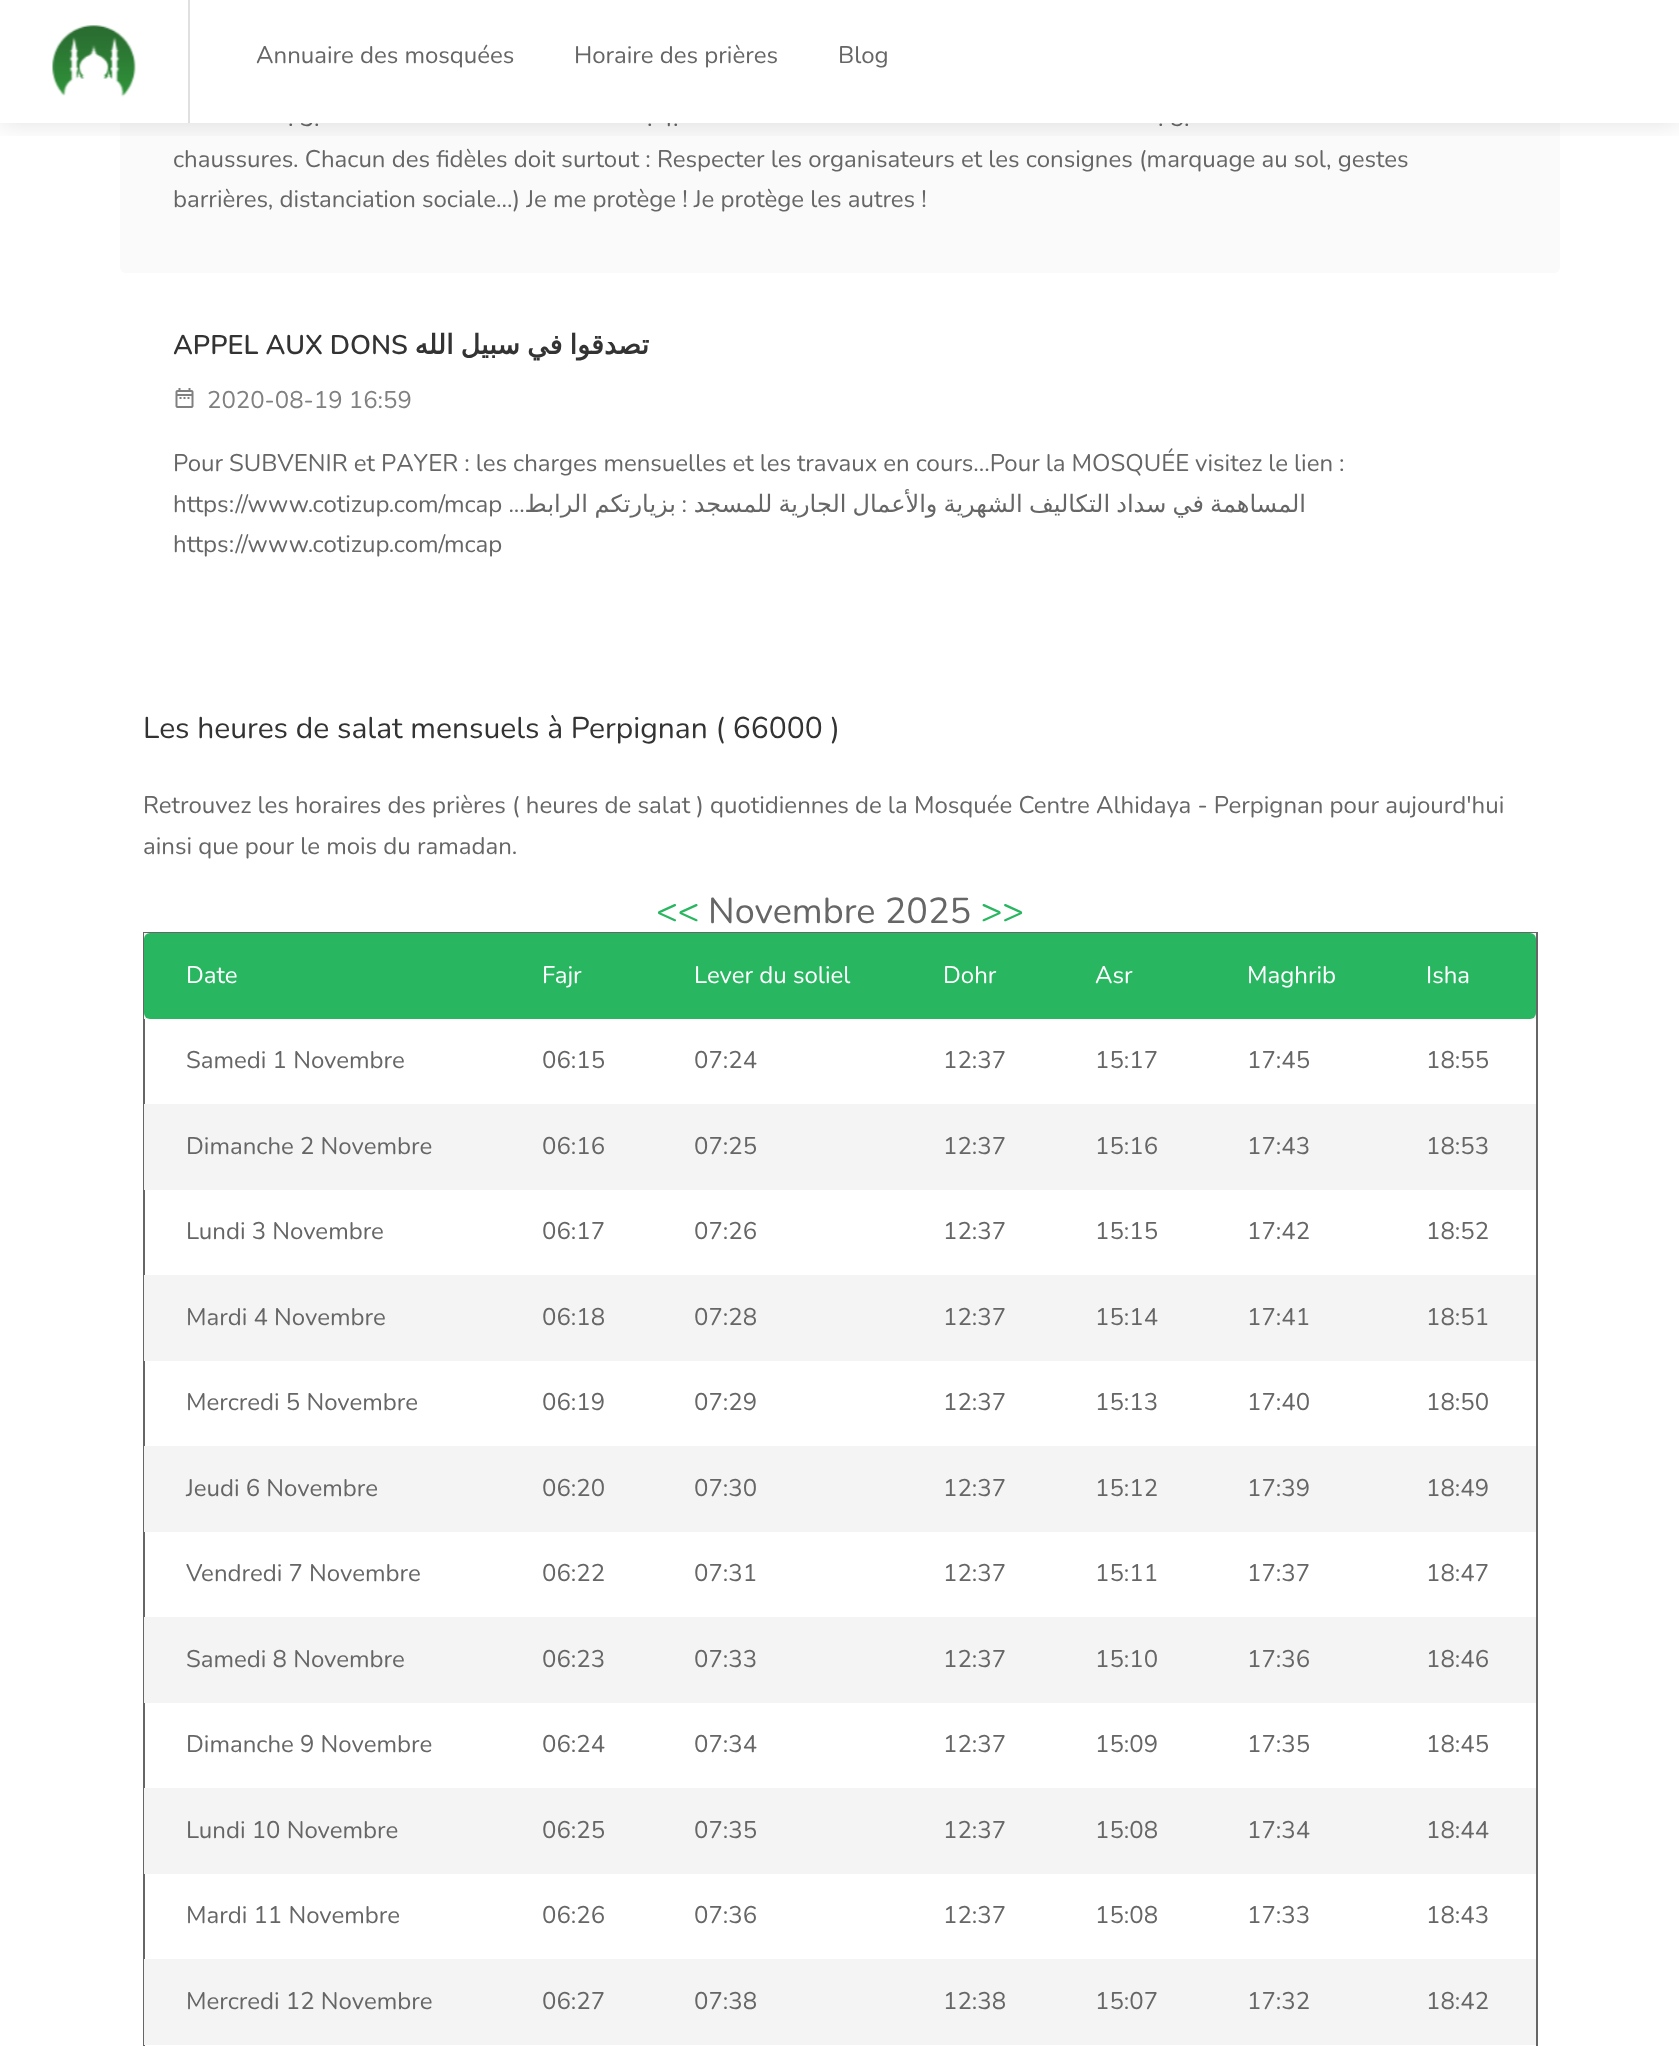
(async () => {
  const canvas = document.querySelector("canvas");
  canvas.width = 1679;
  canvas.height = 2046;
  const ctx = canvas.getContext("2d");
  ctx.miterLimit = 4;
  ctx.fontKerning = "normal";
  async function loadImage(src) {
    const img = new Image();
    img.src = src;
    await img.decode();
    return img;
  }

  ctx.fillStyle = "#ffffff";
  ctx.fillRect(0, 0, 1679, 2046);
  ctx.fillStyle = "#fafafa";
  ctx.beginPath();
  ctx.roundRect(120, -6, 1440, 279, 6);
  ctx.fill();
  ctx.drawImage(await loadImage("img/2.png"), 175, 388, 19, 20);
  ctx.strokeStyle = "#666666";
  ctx.lineWidth = 2;
  ctx.strokeRect(144, 933, 1393, 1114);
  ctx.fillStyle = "#f4f4f4";
  ctx.fillRect(144, 933, 1392, 86);
  ctx.fillStyle = "#28b661";
  ctx.beginPath();
  ctx.roundRect(144, 933, 357, 86, [6, 0, 0, 6]);
  ctx.fill();
  ctx.fillRect(501, 933, 884, 86);
  ctx.beginPath();
  ctx.roundRect(1385, 933, 151, 86, [0, 6, 6, 0]);
  ctx.fill();
  for (const [x, y, w, h, color] of [
    [144, 1104, 1392, 86, "#f4f4f4"],
    [144, 1275, 1392, 86, "#f4f4f4"],
    [144, 1446, 1392, 86, "#f4f4f4"],
    [144, 1617, 1392, 86, "#f4f4f4"],
    [144, 1788, 1392, 86, "#f4f4f4"],
    [144, 1959, 1392, 86, "#f4f4f4"],
  ]) {
    ctx.fillStyle = color;
    ctx.fillRect(x, y, w, h);
  }
  ctx.font = "24px Nunito";
  ctx.fillStyle = "#666666";
  for (const [text, x, y] of [
    [". 3.", 288, 126],
    [". 4.", 647, 126],
    [". 5.", 1158, 126],
  ]) {
    ctx.fillText(text, x, y);
  }
  ctx.fillStyle = "#ffffff";
  ctx.fillRect(120, 0, 1440, 123);
  ctx.save();
  ctx.beginPath();
  ctx.rect(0, 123, 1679, 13);
  ctx.clip();
  ctx.fillStyle = "rgba(0, 0, 0, 0.12)";
  ctx.filter = "blur(13.5px)";
  ctx.beginPath();
  ctx.rect(0, 0, 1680, 123);
  ctx.fill();
  ctx.filter = "none";
  ctx.restore();
  ctx.fillStyle = "#666666";
  for (const [text, x, y] of [
    ["Blog", 838, 63],
    ["Horaire des prières", 574, 63],
    ["Annuaire des mosquées", 256, 63],
  ]) {
    ctx.fillText(text, x, y);
  }
  ctx.drawImage(await loadImage("img/1.png"), 52, 25, 84, 72);
  ctx.fillStyle = "#e0e0e0";
  ctx.fillRect(188, 0, 2, 123);
  ctx.fillStyle = "#666666";
  ctx.fillText("chaussures. Chacun des fidèles doit surtout : Respecter les organisateurs et les consignes (marquage au sol, gestes", 173, 167);
  ctx.fillText("barrières, distanciation sociale...) Je me protège ! Je protège les autres !", 173, 207);
  ctx.font = "600 27px Nunito";
  ctx.fillStyle = "#333333";
  ctx.fillText("APPEL AUX DONS", 173, 354);
  ctx.wordSpacing = "-1.5px";
  ctx.direction = "rtl";
  ctx.font = "bold 27px DejaVu Sans";
  ctx.fillText("تصدقوا في سبيل الله", 649, 354);
  ctx.wordSpacing = "0px";
  ctx.direction = "ltr";
  ctx.font = "24px Nunito";
  ctx.fillStyle = "#808080";
  ctx.fillText("2020-08-19 16:59", 207, 408);
  ctx.wordSpacing = "-0.2px";
  ctx.fillStyle = "#666666";
  ctx.fillText("Pour SUBVENIR et PAYER : les charges mensuelles et les travaux en cours...Pour la MOSQUÉE visitez le lien :", 173, 471);
  ctx.wordSpacing = "0px";
  ctx.fillText("https://www.cotizup.com/mcap ...", 173, 512);
  ctx.wordSpacing = "-1px";
  ctx.direction = "rtl";
  ctx.font = "24px DejaVu Sans";
  ctx.fillText("بزيارتكم الرابط", 676, 512);
  ctx.wordSpacing = "0px";
  ctx.font = "24px Nunito";
  ctx.fillText(":", 687, 512);
  ctx.wordSpacing = "-1.5px";
  ctx.font = "24px DejaVu Sans";
  ctx.fillText("المساهمة في سداد التكاليف الشهرية والأعمال الجارية للمسجد", 1306, 512);
  ctx.wordSpacing = "0px";
  ctx.direction = "ltr";
  ctx.font = "24px Nunito";
  ctx.fillText("https://www.cotizup.com/mcap", 173, 552);
  ctx.font = "30px Nunito";
  ctx.fillStyle = "#333333";
  ctx.fillText("Les heures de salat mensuels à Perpignan ( 66000 )", 143, 738);
  ctx.font = "24px Nunito";
  ctx.fillStyle = "#666666";
  ctx.fillText("Retrouvez les horaires des prières ( heures de salat ) quotidiennes de la Mosquée Centre Alhidaya - Perpignan pour aujourd'hui", 143, 813);
  ctx.fillText("ainsi que pour le mois du ramadan.", 143, 854);
  ctx.font = "36px Nunito";
  ctx.fillStyle = "#28b661";
  ctx.fillText("<<", 656, 923);
  ctx.fillStyle = "#666666";
  ctx.fillText("Novembre 2025", 708, 923);
  ctx.fillStyle = "#28b661";
  ctx.fillText(">>", 981, 923);
  ctx.font = "24px Nunito";
  ctx.fillStyle = "#ffffff";
  for (const [text, x, y] of [
    ["Date", 186, 983],
    ["Fajr", 542, 983],
    ["Lever du soliel", 694, 983],
    ["Dohr", 943, 983],
    ["Asr", 1095, 983],
    ["Maghrib", 1247, 983],
    ["Isha", 1426, 983],
  ]) {
    ctx.fillText(text, x, y);
  }
  ctx.fillStyle = "#666666";
  for (const [text, x, y] of [
    ["Samedi 1 Novembre", 186, 1068],
    ["06:15", 542, 1068],
    ["07:24", 694, 1068],
    ["12:37", 943, 1068],
    ["15:17", 1095, 1068],
    ["17:45", 1247, 1068],
    ["18:55", 1426, 1068],
    ["Dimanche 2 Novembre", 186, 1154],
    ["06:16", 542, 1154],
    ["07:25", 694, 1154],
    ["12:37", 943, 1154],
    ["15:16", 1095, 1154],
    ["17:43", 1247, 1154],
    ["18:53", 1426, 1154],
    ["Lundi 3 Novembre", 186, 1239],
    ["06:17", 542, 1239],
    ["07:26", 694, 1239],
    ["12:37", 943, 1239],
    ["15:15", 1095, 1239],
    ["17:42", 1247, 1239],
    ["18:52", 1426, 1239],
    ["Mardi 4 Novembre", 186, 1325],
    ["06:18", 542, 1325],
    ["07:28", 694, 1325],
    ["12:37", 943, 1325],
    ["15:14", 1095, 1325],
    ["17:41", 1247, 1325],
    ["18:51", 1426, 1325],
    ["Mercredi 5 Novembre", 186, 1410],
    ["06:19", 542, 1410],
    ["07:29", 694, 1410],
    ["12:37", 943, 1410],
    ["15:13", 1095, 1410],
    ["17:40", 1247, 1410],
    ["18:50", 1426, 1410],
    ["Jeudi 6 Novembre", 186, 1496],
    ["06:20", 542, 1496],
    ["07:30", 694, 1496],
    ["12:37", 943, 1496],
    ["15:12", 1095, 1496],
    ["17:39", 1247, 1496],
    ["18:49", 1426, 1496],
    ["Vendredi 7 Novembre", 186, 1581],
    ["06:22", 542, 1581],
    ["07:31", 694, 1581],
    ["12:37", 943, 1581],
    ["15:11", 1095, 1581],
    ["17:37", 1247, 1581],
    ["18:47", 1426, 1581],
    ["Samedi 8 Novembre", 186, 1667],
    ["06:23", 542, 1667],
    ["07:33", 694, 1667],
    ["12:37", 943, 1667],
    ["15:10", 1095, 1667],
    ["17:36", 1247, 1667],
    ["18:46", 1426, 1667],
    ["Dimanche 9 Novembre", 186, 1752],
    ["06:24", 542, 1752],
    ["07:34", 694, 1752],
    ["12:37", 943, 1752],
    ["15:09", 1095, 1752],
    ["17:35", 1247, 1752],
    ["18:45", 1426, 1752],
    ["Lundi 10 Novembre", 186, 1838],
    ["06:25", 542, 1838],
    ["07:35", 694, 1838],
    ["12:37", 943, 1838],
    ["15:08", 1095, 1838],
    ["17:34", 1247, 1838],
    ["18:44", 1426, 1838],
    ["Mardi 11 Novembre", 186, 1923],
    ["06:26", 542, 1923],
    ["07:36", 694, 1923],
    ["12:37", 943, 1923],
    ["15:08", 1095, 1923],
    ["17:33", 1247, 1923],
    ["18:43", 1426, 1923],
    ["Mercredi 12 Novembre", 186, 2009],
    ["06:27", 542, 2009],
    ["07:38", 694, 2009],
    ["12:38", 943, 2009],
    ["15:07", 1095, 2009],
    ["17:32", 1247, 2009],
    ["18:42", 1426, 2009],
  ]) {
    ctx.fillText(text, x, y);
  }
})();
